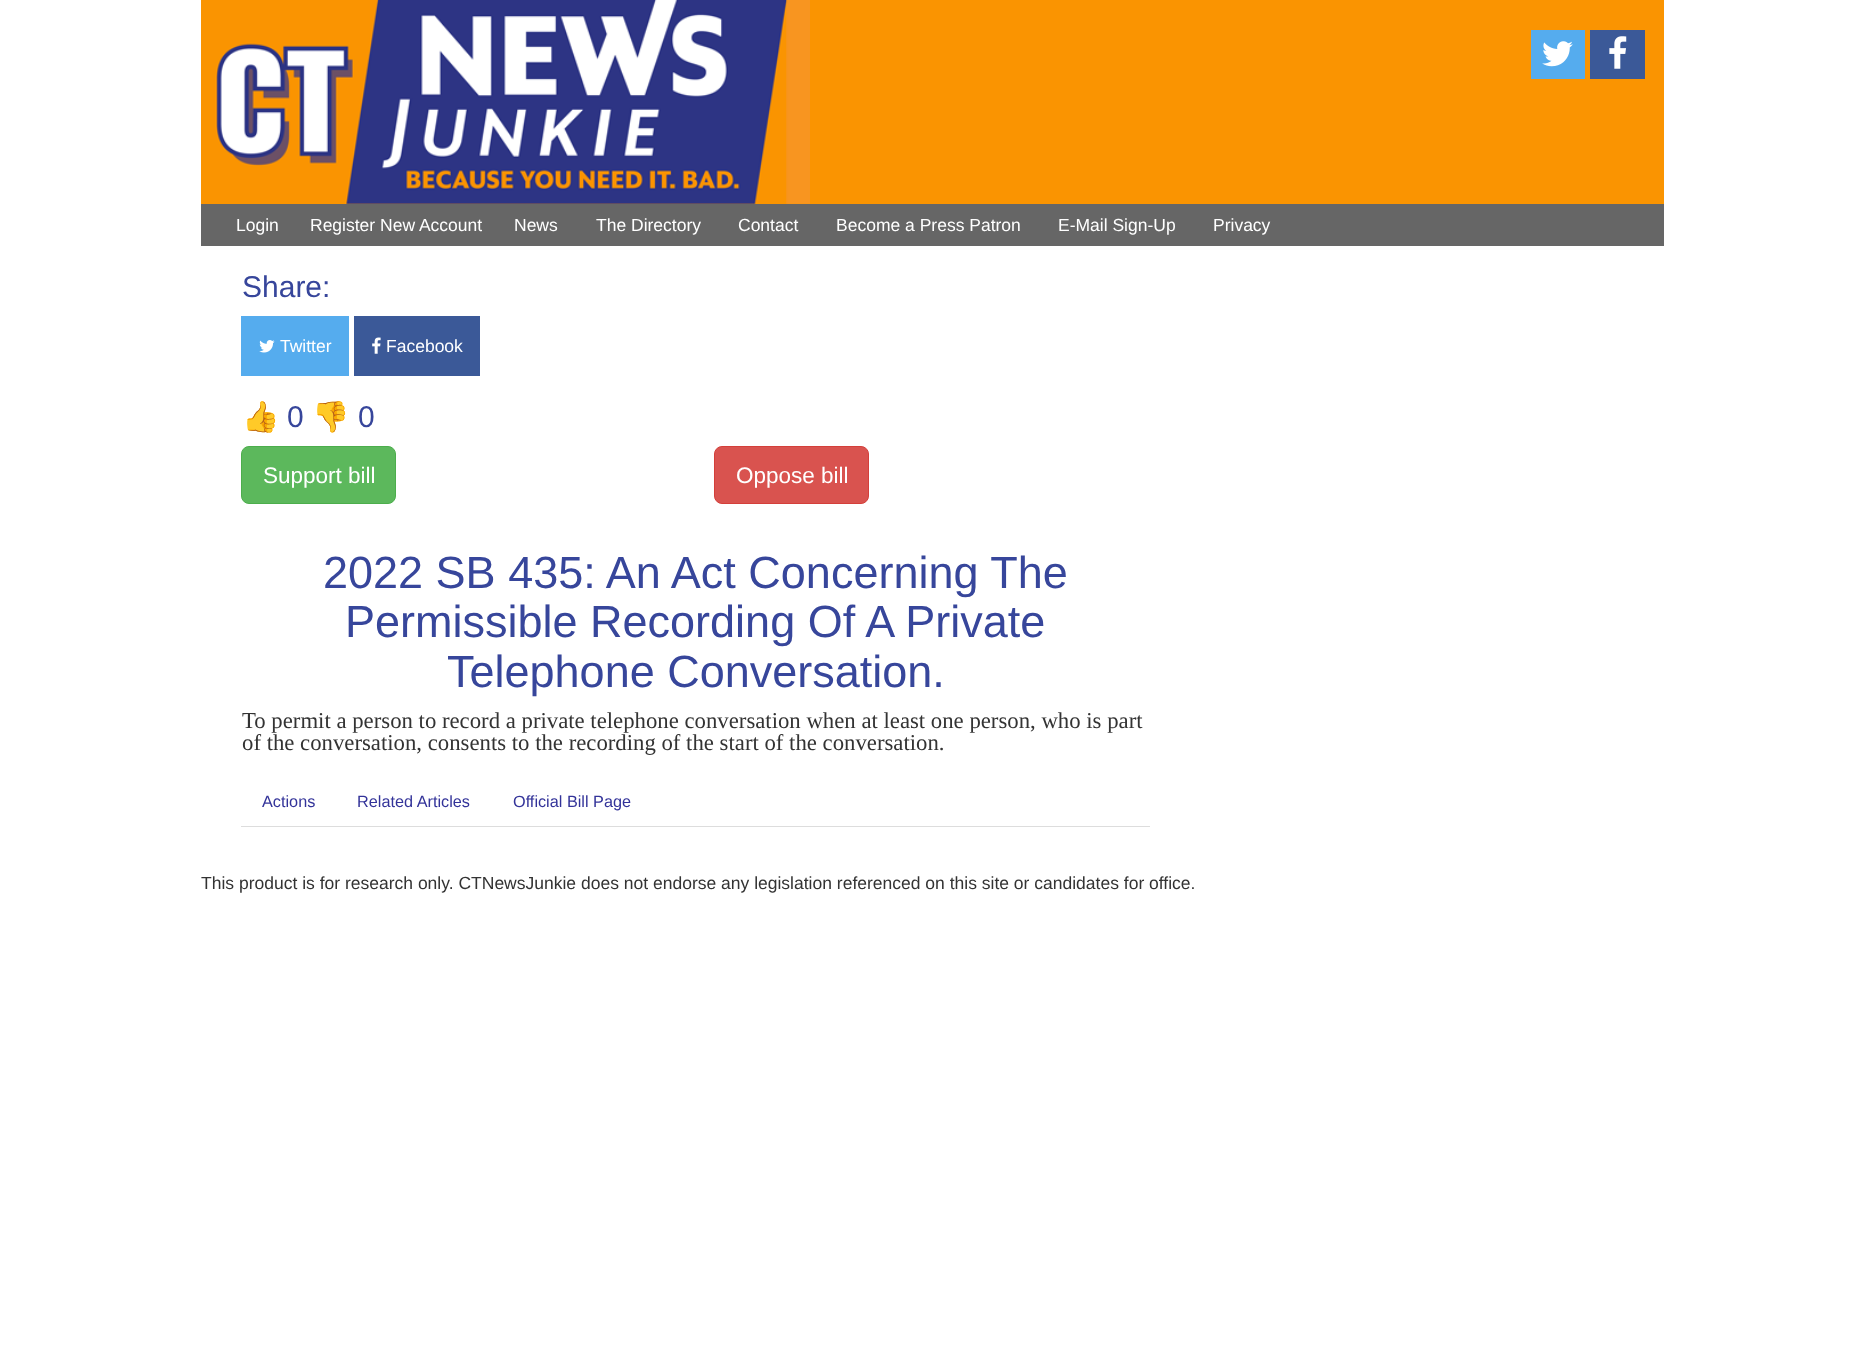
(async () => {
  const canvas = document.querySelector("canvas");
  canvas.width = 1863;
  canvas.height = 1367;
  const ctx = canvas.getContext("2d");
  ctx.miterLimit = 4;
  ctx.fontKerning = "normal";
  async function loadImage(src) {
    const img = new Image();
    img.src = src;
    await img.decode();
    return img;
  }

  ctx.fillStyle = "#ffffff";
  ctx.fillRect(0, 0, 1863, 1367);
  ctx.fillStyle = "#fa9401";
  ctx.fillRect(201, 0, 1463, 204);
  ctx.drawImage(await loadImage("img/1.png"), 215, 0, 595, 204);
  ctx.fillStyle = "#55acee";
  ctx.fillRect(1531, 30, 54, 49);
  ctx.drawImage(await loadImage("img/2.png"), 1542, 41, 31, 26);
  ctx.fillStyle = "#3b5998";
  ctx.fillRect(1590, 30, 55, 49);
  ctx.drawImage(await loadImage("img/3.png"), 1609, 36, 18, 33);
  ctx.fillStyle = "#666666";
  ctx.fillRect(201, 204, 1463, 42);
  ctx.fillStyle = "#55acee";
  ctx.fillRect(241, 316, 108, 60);
  ctx.drawImage(await loadImage("img/4.png"), 259, 340, 16, 13);
  ctx.fillStyle = "#3b5998";
  ctx.fillRect(354, 316, 126, 60);
  ctx.drawImage(await loadImage("img/5.png"), 372, 337, 9, 17);
  ctx.fillStyle = "#5cb85c";
  ctx.beginPath();
  ctx.roundRect(241.5, 446.5, 154, 57, 7.5);
  ctx.fill();
  ctx.strokeStyle = "#4cae4c";
  ctx.stroke();
  ctx.fillStyle = "#d9534f";
  ctx.beginPath();
  ctx.roundRect(714.5, 446.5, 154, 57, 7.5);
  ctx.fill();
  ctx.strokeStyle = "#d43f3a";
  ctx.stroke();
  ctx.fillStyle = "#dddddd";
  ctx.fillRect(241, 826, 909, 1);
  ctx.font = "17.5px Liberation Sans";
  ctx.fillStyle = "#ffffff";
  for (const [text, x, y] of [
    ["Login", 236, 231],
    ["Register New Account", 310, 231],
    ["News", 514, 231],
    ["The Directory", 596, 231],
    ["Contact", 738, 231],
    ["Become a Press Patron", 836, 231],
    ["E-Mail Sign-Up", 1058, 231],
    ["Privacy", 1213, 231],
  ]) {
    ctx.fillText(text, x, y);
  }
  ctx.font = "30px Liberation Sans";
  ctx.fillStyle = "#37469b";
  ctx.fillText("Share:", 242, 297);
  ctx.font = "17.5px Liberation Sans";
  ctx.fillStyle = "#ffffff";
  ctx.fillText("Twitter", 280, 352);
  ctx.fillText("Facebook", 386, 352);
  ctx.font = "30px Noto Color Emoji";
  ctx.fillStyle = "#37469b";
  ctx.fillText("👍", 242, 427);
  ctx.font = "30px Liberation Sans";
  ctx.fillText("0", 287, 427);
  ctx.font = "30px Noto Color Emoji";
  ctx.fillText("👎", 312, 427);
  ctx.font = "30px Liberation Sans";
  ctx.fillText("0", 358, 427);
  ctx.font = "22.5px Liberation Sans";
  ctx.fillStyle = "#ffffff";
  ctx.fillText("Support bill", 263, 483);
  ctx.fillText("Oppose bill", 736, 483);
  ctx.font = "45px Liberation Sans";
  ctx.fillStyle = "#37469b";
  for (const [text, x, y] of [
    ["2022 SB 435: An Act Concerning The", 323, 588],
    ["Permissible Recording Of A Private", 345, 637],
    ["Telephone Conversation.", 447, 687],
  ]) {
    ctx.fillText(text, x, y);
  }
  ctx.font = "22.75px Liberation Serif";
  ctx.fillStyle = "#333333";
  ctx.fillText("To permit a person to record a private telephone conversation when at least one person, who is part", 242, 728);
  ctx.fillText("of the conversation, consents to the recording of the start of the conversation.", 242, 750);
  ctx.font = "16.25px Liberation Sans";
  ctx.fillStyle = "#333399";
  for (const [text, x, y] of [
    ["Actions", 262, 807],
    ["Related Articles", 357, 807],
    ["Official Bill Page", 513, 807],
  ]) {
    ctx.fillText(text, x, y);
  }
  ctx.font = "17.5px Liberation Sans";
  ctx.fillStyle = "#333333";
  ctx.fillText("This product is for research only. CTNewsJunkie does not endorse any legislation referenced on this site or candidates for office.", 201, 889);
})();
